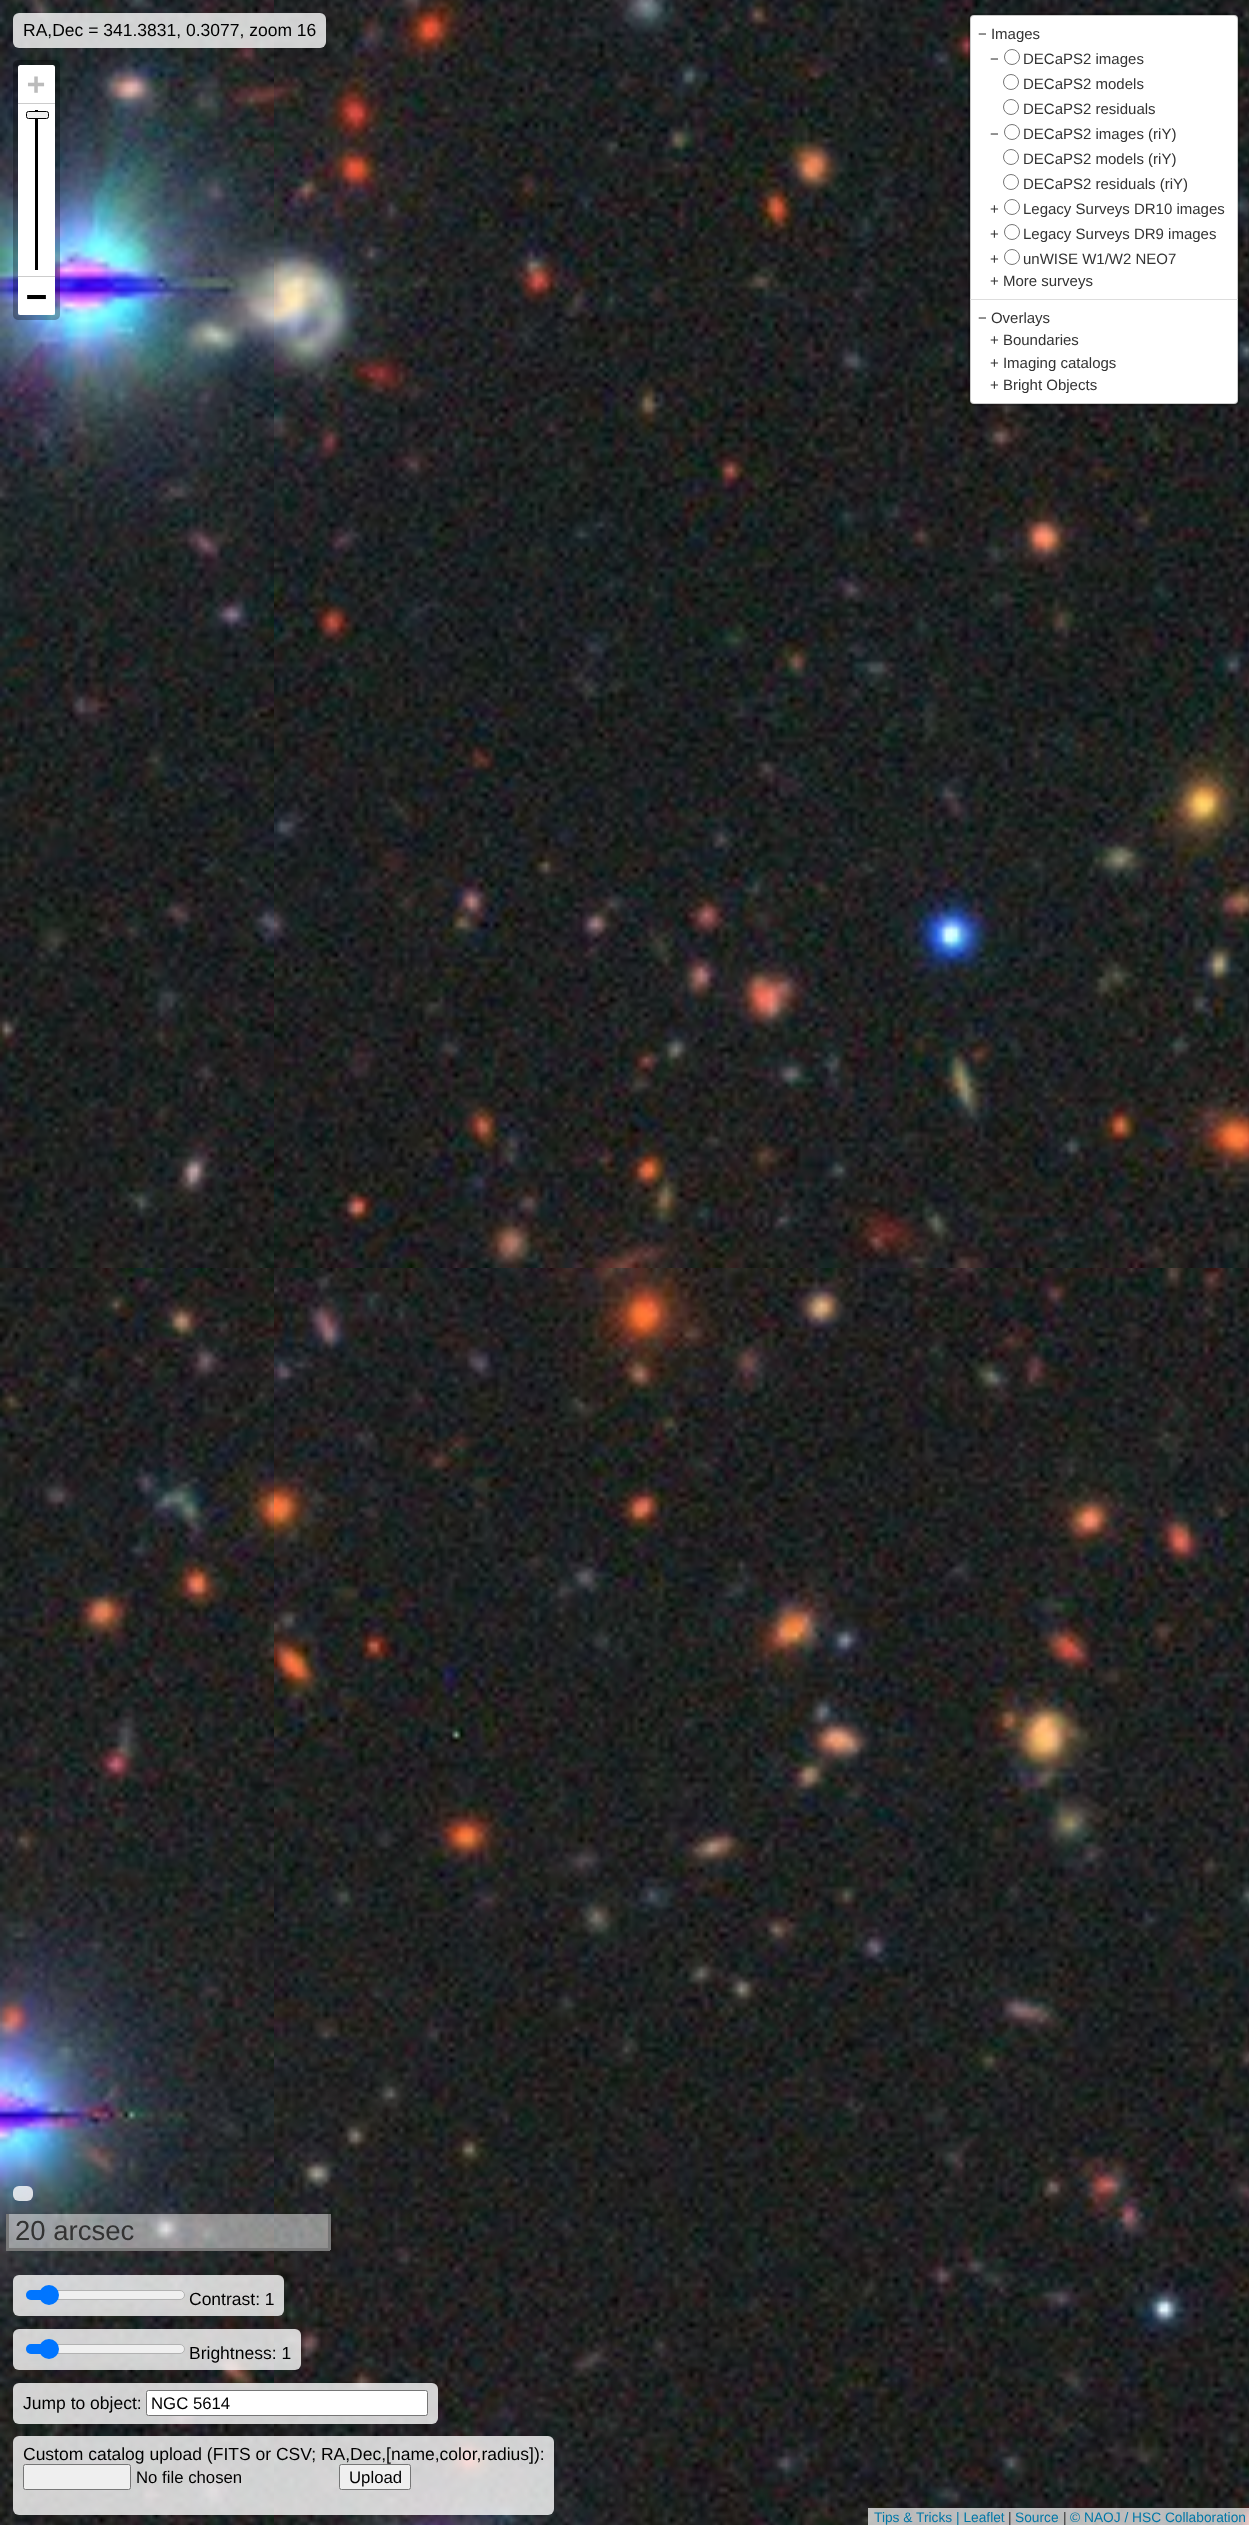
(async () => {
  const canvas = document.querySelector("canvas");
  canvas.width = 1249;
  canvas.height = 2525;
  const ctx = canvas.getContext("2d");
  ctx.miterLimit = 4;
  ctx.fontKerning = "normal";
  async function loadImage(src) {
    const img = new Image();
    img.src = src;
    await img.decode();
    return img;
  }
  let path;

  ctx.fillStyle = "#ffffff";
  ctx.fillRect(0, 0, 1249, 2525);
  ctx.drawImage(await loadImage("img/1.png"), 0, 0, 274, 1268);
  ctx.drawImage(await loadImage("img/2.png"), 274, 0, 975, 1268);
  ctx.drawImage(await loadImage("img/3.png"), 0, 1268, 274, 1257);
  ctx.drawImage(await loadImage("img/4.png"), 274, 1268, 975, 1257);
  ctx.fillStyle = "rgba(255, 255, 255, 0.8)";
  ctx.beginPath();
  ctx.roundRect(13, 13, 313, 35, 6);
  ctx.fill();
  ctx.beginPath();
  ctx.roundRect(15.5, 62.5, 42, 255, 2.5);
  ctx.strokeStyle = "rgba(0, 0, 0, 0.3)";
  ctx.lineWidth = 5;
  ctx.stroke();
  ctx.fillStyle = "#ffffff";
  ctx.beginPath();
  ctx.roundRect(18, 65, 37, 39, [2.5, 2.5, 0, 0]);
  ctx.fill();
  for (const [x, y, w, h, color] of [
    [18, 103, 37, 1, "#cccccc"],
    [18, 104, 37, 174, "#ffffff"],
    [18, 276, 37, 1, "#cccccc"],
    [35, 110, 3, 160, "#000000"],
  ]) {
    ctx.fillStyle = color;
    ctx.fillRect(x, y, w, h);
  }
  ctx.fillStyle = "#efefef";
  ctx.beginPath();
  ctx.roundRect(26.5, 111.5, 22, 7, 2);
  ctx.fill();
  ctx.strokeStyle = "#000000";
  ctx.lineWidth = 1;
  ctx.stroke();
  ctx.fillStyle = "#ffffff";
  ctx.beginPath();
  ctx.roundRect(18, 278, 37, 37, [0, 0, 2.5, 2.5]);
  ctx.fill();
  ctx.beginPath();
  ctx.roundRect(970, 15, 268, 389, 4);
  ctx.fill();
  ctx.beginPath();
  ctx.roundRect(969.5, 14.5, 269, 390, 4.5);
  ctx.strokeStyle = "rgba(0, 0, 0, 0.2)";
  ctx.lineWidth = 3;
  ctx.stroke();
  ctx.beginPath();
  ctx.arc(1012, 57, 7.5, 0, Math.PI * 2);
  ctx.strokeStyle = "#767676";
  ctx.lineWidth = 1;
  ctx.stroke();
  ctx.beginPath();
  ctx.arc(1011, 82, 7.5, 0, Math.PI * 2);
  ctx.stroke();
  ctx.beginPath();
  ctx.arc(1011, 107, 7.5, 0, Math.PI * 2);
  ctx.stroke();
  ctx.beginPath();
  ctx.arc(1012, 132, 7.5, 0, Math.PI * 2);
  ctx.stroke();
  ctx.beginPath();
  ctx.arc(1011, 157, 7.5, 0, Math.PI * 2);
  ctx.stroke();
  ctx.beginPath();
  ctx.arc(1011, 182, 7.5, 0, Math.PI * 2);
  ctx.stroke();
  ctx.beginPath();
  ctx.arc(1012, 207, 7.5, 0, Math.PI * 2);
  ctx.stroke();
  ctx.beginPath();
  ctx.arc(1012, 232, 7.5, 0, Math.PI * 2);
  ctx.stroke();
  ctx.beginPath();
  ctx.arc(1012, 257, 7.5, 0, Math.PI * 2);
  ctx.stroke();
  ctx.fillStyle = "#dddddd";
  ctx.fillRect(970, 299, 268, 1);
  ctx.fillStyle = "rgba(255, 255, 255, 0.8)";
  ctx.beginPath();
  ctx.roundRect(13, 2186, 20, 15, 6);
  ctx.fill();
  for (const [x, y, w, h, color] of [
    [9, 2214, 319, 34, "rgba(255, 255, 255, 0.5)"],
    [328, 2214, 3, 36, "#777777"],
    [6, 2248, 324, 3, "#777777"],
    [6, 2214, 3, 36, "#777777"],
  ]) {
    ctx.fillStyle = color;
    ctx.fillRect(x, y, w, h);
  }
  ctx.fillStyle = "rgba(255, 255, 255, 0.8)";
  ctx.beginPath();
  ctx.roundRect(13, 2275, 271, 41, 6);
  ctx.fill();
  ctx.fillStyle = "#efefef";
  ctx.beginPath();
  ctx.roundRect(26.5, 2290.5, 158, 9, 4.5);
  ctx.fill();
  ctx.strokeStyle = "#b2b2b2";
  ctx.stroke();
  ctx.fillStyle = "#0075ff";
  ctx.beginPath();
  ctx.roundRect(26, 2290, 23, 10, [5, 0, 0, 5]);
  ctx.fill();
  ctx.beginPath();
  ctx.arc(49, 2295, 10, 0, Math.PI * 2);
  ctx.fill();
  ctx.save();
  path = new Path2D("M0 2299H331V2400H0ZM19 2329H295C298.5 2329 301 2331.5 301 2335V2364C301 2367.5 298.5 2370 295 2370H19C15.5 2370 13 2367.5 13 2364V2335C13 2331.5 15.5 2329 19 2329Z");
  ctx.clip(path, "evenodd");
  ctx.fillStyle = "rgba(0, 0, 0, 0.2)";
  ctx.filter = "blur(9.5px)";
  ctx.beginPath();
  ctx.roundRect(13, 2329, 288, 41, 6);
  ctx.fill();
  ctx.filter = "none";
  ctx.restore();
  ctx.fillStyle = "rgba(255, 255, 255, 0.8)";
  ctx.beginPath();
  ctx.roundRect(13, 2329, 288, 41, 6);
  ctx.fill();
  ctx.fillStyle = "#efefef";
  ctx.beginPath();
  ctx.roundRect(26.5, 2344.5, 158, 9, 4.5);
  ctx.fill();
  ctx.stroke();
  ctx.fillStyle = "#0075ff";
  ctx.beginPath();
  ctx.roundRect(26, 2344, 23, 10, [5, 0, 0, 5]);
  ctx.fill();
  ctx.beginPath();
  ctx.arc(49, 2349, 10, 0, Math.PI * 2);
  ctx.fill();
  ctx.save();
  path = new Path2D("M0 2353H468V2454H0ZM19 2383H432C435.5 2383 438 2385.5 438 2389V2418C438 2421.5 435.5 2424 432 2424H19C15.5 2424 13 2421.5 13 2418V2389C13 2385.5 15.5 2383 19 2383Z");
  ctx.clip(path, "evenodd");
  ctx.fillStyle = "rgba(0, 0, 0, 0.2)";
  ctx.filter = "blur(9.5px)";
  ctx.beginPath();
  ctx.roundRect(13, 2383, 425, 41, 6);
  ctx.fill();
  ctx.filter = "none";
  ctx.restore();
  ctx.fillStyle = "rgba(255, 255, 255, 0.8)";
  ctx.beginPath();
  ctx.roundRect(13, 2383, 425, 41, 6);
  ctx.fill();
  ctx.fillStyle = "#ffffff";
  ctx.beginPath();
  ctx.roundRect(146.5, 2390.5, 281, 25, 2);
  ctx.fill();
  ctx.strokeStyle = "#767676";
  ctx.stroke();
  ctx.fillStyle = "rgba(255, 255, 255, 0.8)";
  ctx.beginPath();
  ctx.roundRect(13, 2436, 541, 79, 6);
  ctx.fill();
  ctx.fillStyle = "#efefef";
  ctx.beginPath();
  ctx.roundRect(23.5, 2464.5, 107, 25, 2);
  ctx.fill();
  ctx.stroke();
  ctx.beginPath();
  ctx.roundRect(339.5, 2464.5, 71, 25, 2);
  ctx.fill();
  ctx.stroke();
  ctx.fillStyle = "rgba(255, 255, 255, 0.7)";
  ctx.fillRect(868, 2508, 381, 17);
  ctx.font = "17.5px Liberation Sans";
  ctx.fillStyle = "#000000";
  ctx.fillText("RA,Dec = 341.3831, 0.3077, zoom 16", 23, 36);
  ctx.font = "bold 30px DejaVu Sans Mono";
  ctx.fillStyle = "#bbbbbb";
  ctx.fillText("+", 27, 94);
  ctx.font = "bold 35px DejaVu Sans Mono";
  ctx.fillStyle = "#000000";
  ctx.fillText("−", 26, 308);
  ctx.font = "15px Liberation Sans";
  ctx.fillStyle = "#333333";
  for (const [text, x, y] of [
    ["− Images", 978, 39],
    ["−", 990, 64],
    ["DECaPS2 images", 1023, 64],
    ["DECaPS2 models", 1023, 89],
    ["DECaPS2 residuals", 1023, 114],
    ["−", 990, 139],
    ["DECaPS2 images (riY)", 1023, 139],
    ["DECaPS2 models (riY)", 1023, 164],
    ["DECaPS2 residuals (riY)", 1023, 189],
    ["+", 990, 214],
    ["Legacy Surveys DR10 images", 1023, 214],
    ["+", 990, 239],
    ["Legacy Surveys DR9 images", 1023, 239],
    ["+", 990, 264],
    ["unWISE W1/W2 NEO7", 1023, 264],
    ["+ More surveys", 990, 286],
    ["− Overlays", 978, 323],
    ["+ Boundaries", 990, 345],
    ["+ Imaging catalogs", 990, 368],
    ["+ Bright Objects", 990, 390],
  ]) {
    ctx.fillText(text, x, y);
  }
  ctx.font = "27.5px Liberation Sans";
  ctx.fillText("20 arcsec", 15, 2240);
  ctx.font = "17.5px Liberation Sans";
  ctx.fillStyle = "#000000";
  for (const [text, x, y] of [
    ["Contrast: 1", 189, 2305],
    ["Brightness: 1", 189, 2359],
    ["Jump to object:", 23, 2409],
  ]) {
    ctx.fillText(text, x, y);
  }
  ctx.font = "16.75px Liberation Sans";
  ctx.fillText("NGC 5614", 151, 2409);
  ctx.font = "17.5px Liberation Sans";
  ctx.fillText("Custom catalog upload (FITS or CSV; RA,Dec,[name,color,radius]):", 23, 2460);
  ctx.font = "16.75px Liberation Sans";
  ctx.fillText("No file chosen", 136, 2483);
  ctx.fillText("Upload", 349, 2483);
  ctx.font = "13.75px Liberation Sans";
  ctx.fillStyle = "#0078a8";
  ctx.fillText("Tips & Tricks | Leaflet", 874, 2522);
  ctx.fillStyle = "#333333";
  ctx.fillText("|", 1008, 2522);
  ctx.fillStyle = "#0078a8";
  ctx.fillText("Source", 1015, 2522);
  ctx.fillStyle = "#333333";
  ctx.fillText("|", 1063, 2522);
  ctx.fillStyle = "#0078a8";
  ctx.fillText("© NAOJ / HSC Collaboration", 1070, 2522);
})();
